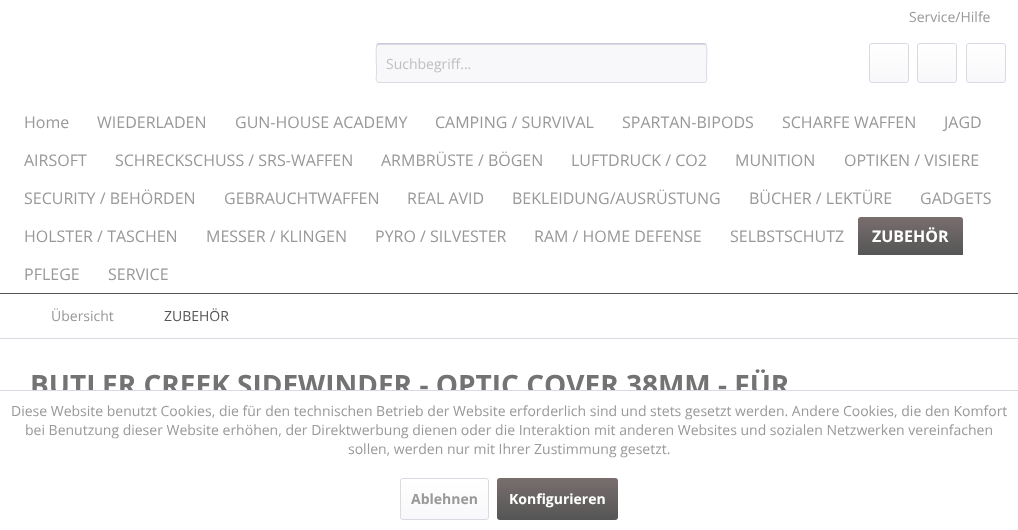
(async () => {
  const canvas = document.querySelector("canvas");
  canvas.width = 1018;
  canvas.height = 530;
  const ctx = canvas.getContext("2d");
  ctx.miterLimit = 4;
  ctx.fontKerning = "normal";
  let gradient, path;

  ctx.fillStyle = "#ffffff";
  ctx.fillRect(0, 0, 1018, 530);
  ctx.fillStyle = "#f8f8fa";
  ctx.beginPath();
  ctx.roundRect(376, 43, 331, 40, 3);
  ctx.fill();
  ctx.fillStyle = "#dadae5";
  path = new Path2D("M379 45H704C705 45 706 46 706 47C706 46 706 44 704 44H378L377 45V47C377 46 378 45 379 45Z");
  ctx.fill(path);
  path = new Path2D("M377 44L379 43.5H704L706 44");
  ctx.strokeStyle = "#cbcbdb";
  ctx.stroke(path);
  path = new Path2D("M706 44C707.5 46 706.5 65 706.5 68.5V74.5C706.5 76 708 82.5 704 82.5H379C375 82.5 376.5 76 376.5 74.5V68.5C376.5 65 375.5 46 377 44");
  ctx.strokeStyle = "#dadae5";
  ctx.stroke(path);
  gradient = ctx.createLinearGradient(889, 44, 889, 82);
  gradient.addColorStop(0, "#ffffff");
  gradient.addColorStop(1, "#f8f8fa");
  ctx.fillStyle = gradient;
  ctx.beginPath();
  ctx.roundRect(870, 44, 38, 38, 2);
  ctx.fill();
  ctx.beginPath();
  ctx.roundRect(869.5, 43.5, 39, 39, 2.5);
  ctx.stroke();
  gradient = ctx.createLinearGradient(937, 44, 937, 82);
  gradient.addColorStop(0, "#ffffff");
  gradient.addColorStop(1, "#f8f8fa");
  ctx.fillStyle = gradient;
  ctx.beginPath();
  ctx.roundRect(918, 44, 38, 38, 2);
  ctx.fill();
  ctx.beginPath();
  ctx.roundRect(917.5, 43.5, 39, 39, 2.5);
  ctx.stroke();
  gradient = ctx.createLinearGradient(986, 44, 986, 82);
  gradient.addColorStop(0, "#ffffff");
  gradient.addColorStop(1, "#f8f8fa");
  ctx.fillStyle = gradient;
  ctx.beginPath();
  ctx.roundRect(967, 44, 38, 38, 2);
  ctx.fill();
  ctx.beginPath();
  ctx.roundRect(966.5, 43.5, 39, 39, 2.5);
  ctx.stroke();
  ctx.fillStyle = "#555555";
  ctx.fillRect(0, 293, 1018, 1);
  gradient = ctx.createLinearGradient(911, 217, 911, 255);
  gradient.addColorStop(0, "#796e6e");
  gradient.addColorStop(1, "#555555");
  ctx.fillStyle = gradient;
  ctx.beginPath();
  ctx.roundRect(858, 217, 105, 38, [3, 3, 0, 0]);
  ctx.fill();
  ctx.fillStyle = "#dadae5";
  ctx.fillRect(0, 338, 1018, 1);
  gradient = ctx.createLinearGradient(445, 479, 445, 519);
  gradient.addColorStop(0, "#ffffff");
  gradient.addColorStop(1, "#f8f8fa");
  ctx.fillStyle = gradient;
  ctx.beginPath();
  ctx.roundRect(401, 479, 87, 40, 2);
  ctx.fill();
  ctx.beginPath();
  ctx.roundRect(400.5, 478.5, 88, 41, 2.5);
  ctx.stroke();
  gradient = ctx.createLinearGradient(558, 478, 558, 520);
  gradient.addColorStop(0, "#796e6e");
  gradient.addColorStop(1, "#555555");
  ctx.fillStyle = gradient;
  ctx.beginPath();
  ctx.roundRect(497, 478, 121, 42, 3);
  ctx.fill();
  ctx.font = "14px Open Sans";
  ctx.fillStyle = "#999999";
  ctx.fillText("Service/Hilfe", 909, 22);
  ctx.fillStyle = "#bfbfbf";
  ctx.fillText("Suchbegriff...", 386, 69);
  ctx.font = "16px Open Sans";
  ctx.fillStyle = "#999999";
  for (const [text, x, y] of [
    ["Home", 24, 128],
    ["WIEDERLADEN", 97, 128],
    ["GUN-HOUSE ACADEMY", 235, 128],
    ["CAMPING / SURVIVAL", 435, 128],
    ["SPARTAN-BIPODS", 622, 128],
    ["SCHARFE WAFFEN", 782, 128],
    ["JAGD", 944, 128],
    ["AIRSOFT", 24, 166],
    ["SCHRECKSCHUSS / SRS-WAFFEN", 115, 166],
    ["ARMBRÜSTE / BÖGEN", 381, 166],
    ["LUFTDRUCK / CO2", 571, 166],
    ["MUNITION", 735, 166],
    ["OPTIKEN / VISIERE", 844, 166],
    ["SECURITY / BEHÖRDEN", 24, 204],
    ["GEBRAUCHTWAFFEN", 224, 204],
    ["REAL AVID", 407, 204],
    ["BEKLEIDUNG/AUSRÜSTUNG", 512, 204],
    ["BÜCHER / LEKTÜRE", 749, 204],
    ["GADGETS", 920, 204],
    ["HOLSTER / TASCHEN", 24, 242],
    ["MESSER / KLINGEN", 206, 242],
    ["PYRO / SILVESTER", 375, 242],
    ["RAM / HOME DEFENSE", 534, 242],
    ["SELBSTSCHUTZ", 730, 242],
  ]) {
    ctx.fillText(text, x, y);
  }
  ctx.font = "bold 16px Open Sans";
  ctx.fillStyle = "#ffffff";
  ctx.fillText("ZUBEHÖR", 872, 242);
  ctx.font = "16px Open Sans";
  ctx.fillStyle = "#999999";
  ctx.fillText("PFLEGE", 24, 280);
  ctx.fillText("SERVICE", 108, 280);
  ctx.font = "14px Open Sans";
  ctx.fillText("Übersicht", 51, 321);
  ctx.fillStyle = "#555555";
  ctx.fillText("ZUBEHÖR", 164, 321);
  ctx.font = "bold 28px Open Sans";
  ctx.fillStyle = "#737373";
  ctx.fillText("BUTLER CREEK SIDEWINDER - OPTIC COVER 38MM - FÜR", 30, 395);
  ctx.fillStyle = "#ffffff";
  ctx.fillRect(32, 391, 758, 5);
  ctx.fillStyle = "#dadae5";
  ctx.fillRect(0, 390, 1018, 1);
  ctx.font = "14px Open Sans";
  ctx.fillStyle = "#999999";
  for (const [text, x, y] of [
    ["Diese Website benutzt Cookies, die für den technischen Betrieb der Website erforderlich sind und stets gesetzt werden. Andere Cookies, die den Komfort", 11, 416],
    ["bei Benutzung dieser Website erhöhen, der Direktwerbung dienen oder die Interaktion mit anderen Websites und sozialen Netzwerken vereinfachen", 25, 435],
    ["sollen, werden nur mit Ihrer Zustimmung gesetzt.", 348, 454],
  ]) {
    ctx.fillText(text, x, y);
  }
  ctx.font = "bold 14px Open Sans";
  ctx.fillText("Ablehnen", 411, 504);
  ctx.fillStyle = "#ffffff";
  ctx.fillText("Konfigurieren", 509, 504);
})();
